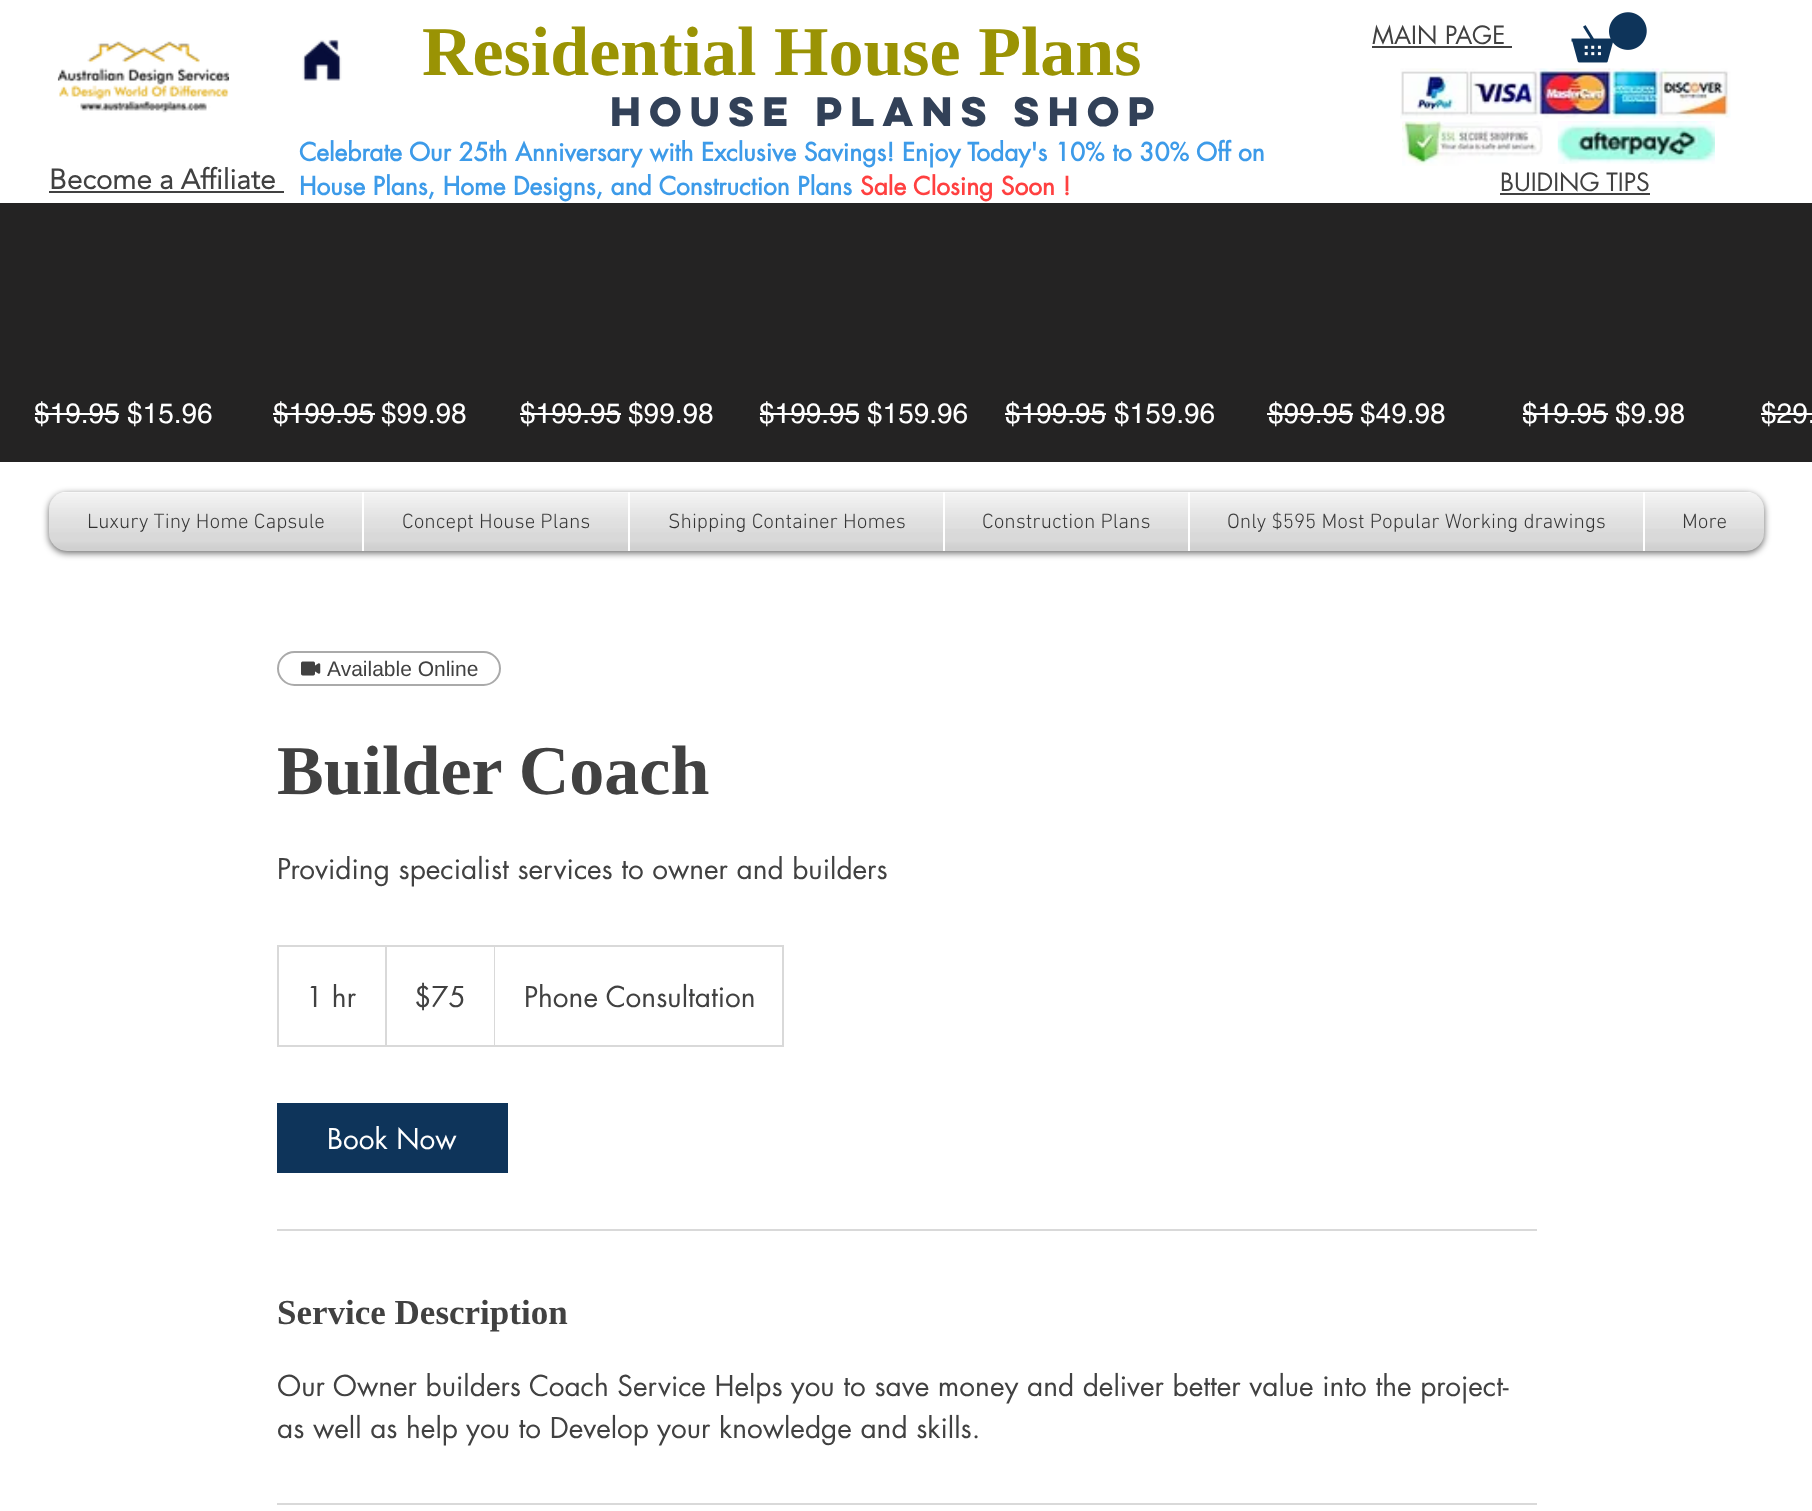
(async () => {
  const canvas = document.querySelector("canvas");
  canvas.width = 1812;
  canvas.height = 1511;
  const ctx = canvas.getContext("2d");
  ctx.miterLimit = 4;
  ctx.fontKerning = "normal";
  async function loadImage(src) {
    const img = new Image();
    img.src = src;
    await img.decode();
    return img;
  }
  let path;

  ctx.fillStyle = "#ffffff";
  ctx.fillRect(0, 0, 1812, 1511);
  ctx.drawImage(await loadImage("img/1.png"), 57, 41, 173, 72);
  ctx.drawImage(await loadImage("img/2.png"), 302, 39, 40, 42);
  ctx.fillStyle = "#414141";
  ctx.fillRect(1372, 46, 140, 2);
  ctx.drawImage(await loadImage("img/3.png"), 1571, 12, 76, 51);
  ctx.drawImage(await loadImage("img/4.png"), 1400, 68, 331, 51);
  ctx.fillRect(49, 191, 235, 2);
  ctx.drawImage(await loadImage("img/5.png"), 1402, 121, 141, 45);
  ctx.drawImage(await loadImage("img/6.png"), 1557, 121, 158, 43);
  for (const [x, y, w, h, color] of [
    [1500, 193, 150, 2, "#414141"],
    [0, 203, 1812, 259, "#242323"],
    [35, 413, 84, 2, "#ffffff"],
    [273, 413, 102, 2, "#ffffff"],
    [520, 413, 101, 2, "#ffffff"],
    [760, 413, 99, 2, "#ffffff"],
    [1005, 413, 101, 2, "#ffffff"],
    [1267, 413, 86, 2, "#ffffff"],
    [1523, 413, 85, 2, "#ffffff"],
    [1761, 413, 51, 2, "#ffffff"],
  ]) {
    ctx.fillStyle = color;
    ctx.fillRect(x, y, w, h);
  }
  ctx.fillStyle = "rgba(0, 0, 0, 0.6)";
  ctx.filter = "blur(3.5px)";
  ctx.beginPath();
  ctx.roundRect(49, 494, 1715, 59, 18);
  ctx.fill();
  ctx.filter = "none";
  ctx.drawImage(await loadImage("img/7.png"), 49, 492, 1715, 18);
  ctx.drawImage(await loadImage("img/8.png"), 49, 493, 1715, 58);
  ctx.fillStyle = "#f1f1f1";
  ctx.beginPath();
  ctx.roundRect(49, 492, 313, 59, [18, 0, 0, 18]);
  ctx.fill();
  for (const [x, y, w, h, color] of [
    [364, 492, 264, 59, "#f1f1f1"],
    [362, 492, 2, 59, "#ffffff"],
    [630, 492, 313, 59, "#f1f1f1"],
    [628, 492, 2, 59, "#ffffff"],
    [945, 492, 243, 59, "#f1f1f1"],
    [943, 492, 2, 59, "#ffffff"],
    [1190, 492, 453, 59, "#f1f1f1"],
    [1188, 492, 2, 59, "#ffffff"],
  ]) {
    ctx.fillStyle = color;
    ctx.fillRect(x, y, w, h);
  }
  ctx.fillStyle = "#f1f1f1";
  ctx.beginPath();
  ctx.roundRect(1643, 492, 121, 59, [0, 18, 18, 0]);
  ctx.fill();
  ctx.fillStyle = "#ffffff";
  ctx.fillRect(1643, 492, 2, 59);
  ctx.beginPath();
  ctx.roundRect(278, 652, 222, 33, 16.5);
  ctx.strokeStyle = "#aaaaaa";
  ctx.lineWidth = 2;
  ctx.stroke();
  ctx.drawImage(await loadImage("img/21.png"), 301, 661, 20, 15);
  ctx.strokeStyle = "#d9d9d9";
  ctx.strokeRect(278, 946, 505, 100);
  ctx.save();
  ctx.beginPath();
  ctx.rect(278, 947, 504, 98);
  ctx.clip();
  ctx.fillStyle = "#d9d9d9";
  path = new Path2D("M385 1045V945L387 947V1045Z");
  ctx.fill(path);
  ctx.restore();
  ctx.fillStyle = "#d9d9d9";
  path = new Path2D("M494 1045V945L495 947V1045Z");
  ctx.fill(path);
  for (const [x, y, w, h, color] of [
    [277, 1103, 231, 70, "#0e345a"],
    [277, 1229, 1260, 2, "#d9d9d9"],
    [277, 1503, 1260, 2, "#d9d9d9"],
  ]) {
    ctx.fillStyle = color;
    ctx.fillRect(x, y, w, h);
  }
  ctx.font = "bold 70px Liberation Serif";
  ctx.fillStyle = "#9a9304";
  ctx.fillText("Residential House Plans", 422, 75);
  ctx.font = "24.5px futura";
  ctx.fillStyle = "#414141";
  ctx.fillText("MAIN PAGE", 1372, 44);
  ctx.font = "bold 36.75px 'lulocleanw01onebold'";
  ctx.fillStyle = "#324158";
  ctx.fillText("HOUSE PLANS SHOP", 610, 126);
  ctx.font = "bold 28px 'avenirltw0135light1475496'";
  ctx.fillStyle = "#414141";
  ctx.fillText("Become a Affiliate", 49, 189);
  ctx.font = "bold 24.5px futura";
  ctx.fillStyle = "#3d9be9";
  ctx.fillText("Celebrate Our 25th Anniversary with Exclusive Savings! Enjoy Today's 10% to 30% Off on", 299, 161);
  ctx.fillText("House Plans, Home Designs, and Construction Plans", 299, 195);
  ctx.fillStyle = "#ff4040";
  ctx.fillText("Sale Closing Soon !", 860, 195);
  ctx.font = "24.5px futura";
  ctx.fillStyle = "#414141";
  ctx.fillText("BUIDING TIPS", 1500, 191);
  ctx.font = "28px helvetica";
  ctx.fillStyle = "#ffffff";
  for (const [text, x, y] of [
    ["$19.95", 34, 423],
    ["$15.96", 127, 423],
    ["$199.95", 273, 423],
    ["$99.98", 381, 423],
    ["$199.95", 520, 423],
    ["$99.98", 628, 423],
    ["$199.95", 759, 423],
    ["$159.96", 867, 423],
    ["$199.95", 1005, 423],
    ["$159.96", 1114, 423],
    ["$99.95", 1268, 423],
    ["$49.98", 1360, 423],
    ["$19.95", 1522, 423],
    ["$9.98", 1615, 423],
    ["$29.", 1761, 423],
  ]) {
    ctx.fillText(text, x, y);
  }
  ctx.font = "300 21px 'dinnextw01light'";
  ctx.fillStyle = "#000000";
  ctx.fillText("Luxury Tiny Home Capsule", 87, 528);
  ctx.drawImage(await loadImage("img/9.png"), 49, 492, 313, 40);
  ctx.drawImage(await loadImage("img/10.png"), 49, 493, 313, 58);
  ctx.fillText("Concept House Plans", 402, 528);
  ctx.drawImage(await loadImage("img/11.png"), 364, 492, 264, 40);
  ctx.drawImage(await loadImage("img/12.png"), 364, 493, 264, 58);
  ctx.fillText("Shipping Container Homes", 668, 528);
  ctx.drawImage(await loadImage("img/13.png"), 630, 492, 313, 40);
  ctx.drawImage(await loadImage("img/14.png"), 630, 493, 313, 58);
  ctx.fillText("Construction Plans", 982, 528);
  ctx.drawImage(await loadImage("img/15.png"), 945, 492, 243, 37);
  ctx.drawImage(await loadImage("img/16.png"), 945, 493, 243, 58);
  ctx.fillText("Only $595 Most Popular Working drawings", 1227, 528);
  ctx.drawImage(await loadImage("img/17.png"), 1190, 492, 453, 40);
  ctx.drawImage(await loadImage("img/18.png"), 1190, 493, 453, 58);
  ctx.fillText("More", 1682, 528);
  ctx.drawImage(await loadImage("img/19.png"), 1645, 492, 119, 37);
  ctx.drawImage(await loadImage("img/20.png"), 1645, 493, 119, 58);
  ctx.font = "21px Liberation Sans";
  ctx.fillStyle = "#414141";
  ctx.fillText("Available Online", 327, 676);
  ctx.font = "bold 70px Liberation Serif";
  ctx.fillText("Builder Coach", 277, 794);
  ctx.font = "28px futura";
  for (const [text, x, y] of [
    ["Providing specialist services to owner and builders", 277, 879],
    ["1 hr", 306, 1007],
    ["$75", 414, 1007],
    ["Phone Consultation", 524, 1007],
  ]) {
    ctx.fillText(text, x, y);
  }
  ctx.fillStyle = "#ffffff";
  ctx.fillText("Book Now", 327, 1149);
  ctx.font = "bold 35px Liberation Serif";
  ctx.fillStyle = "#414141";
  ctx.fillText("Service Description", 277, 1324);
  ctx.font = "28px futura";
  ctx.fillText("Our Owner builders Coach Service Helps you to save money and deliver better value into the project-", 277, 1396);
  ctx.fillText("as well as help you to Develop your knowledge and skills.", 277, 1438);
})();
